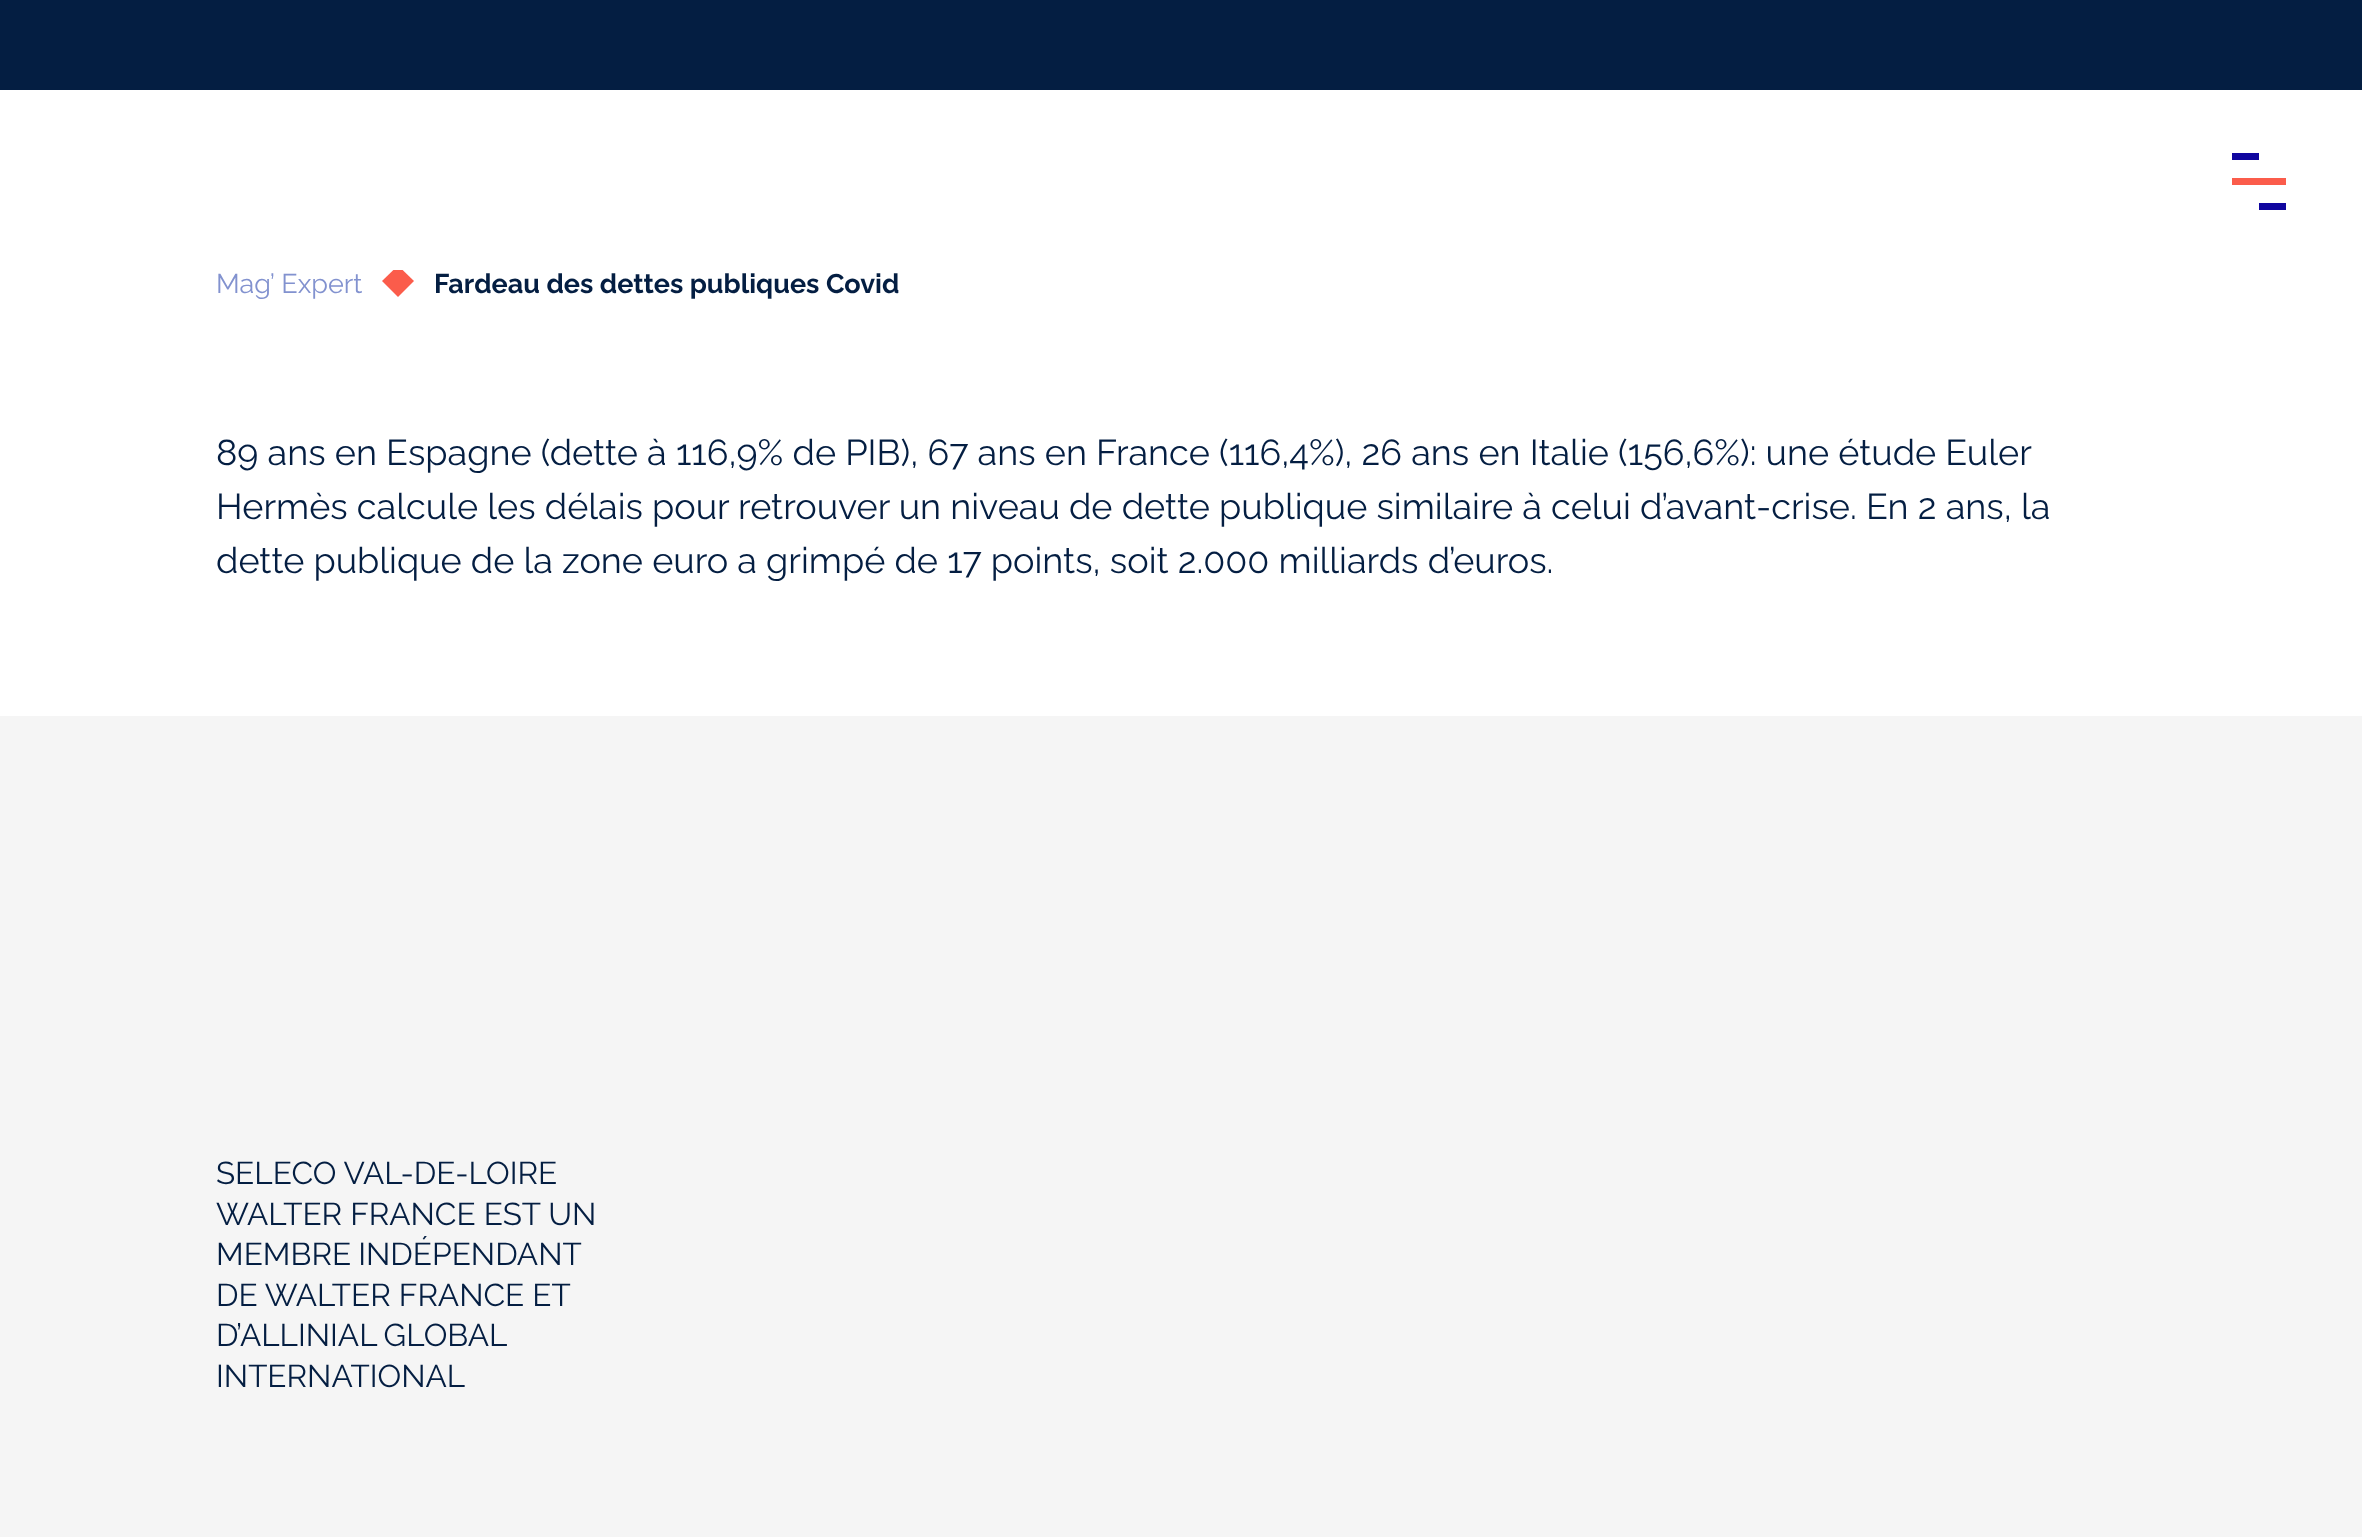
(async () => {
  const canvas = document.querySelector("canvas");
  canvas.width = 2362;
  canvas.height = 1537;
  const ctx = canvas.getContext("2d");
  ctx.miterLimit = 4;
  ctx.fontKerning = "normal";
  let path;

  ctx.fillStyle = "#ffffff";
  ctx.fillRect(0, 0, 2362, 1537);
  ctx.fillStyle = "#fb5c4b";
  path = new Path2D("M398 265.5L414 281L398 297L382 281Z");
  ctx.fill(path);
  for (const [x, y, w, h, color] of [
    [393, 265, 10, 5, "#ffffff"],
    [0, 0, 2362, 90, "#041e42"],
    [2232, 153, 27, 7, "#10069f"],
    [2232, 178, 54, 7, "#fb5c4b"],
    [2259, 203, 27, 7, "#10069f"],
    [0, 716, 2362, 821, "#f5f5f5"],
  ]) {
    ctx.fillStyle = color;
    ctx.fillRect(x, y, w, h);
  }
  ctx.font = "27px Raleway";
  ctx.fillStyle = "#8292cf";
  ctx.fillText("Mag’ Expert", 216, 293);
  ctx.font = "bold 27px Raleway";
  ctx.fillStyle = "#041e42";
  ctx.fillText("Fardeau des dettes publiques Covid", 434, 293);
  ctx.font = "36px Raleway";
  for (const [text, x, y] of [
    ["89 ans en Espagne (dette à 116,9% de PIB), 67 ans en France (116,4%), 26 ans en Italie (156,6%): une étude Euler", 216, 465],
    ["Hermès calcule les délais pour retrouver un niveau de dette publique similaire à celui d’avant-crise. En 2 ans, la", 216, 519],
    ["dette publique de la zone euro a grimpé de 17 points, soit 2.000 milliards d’euros.", 216, 573],
  ]) {
    ctx.fillText(text, x, y);
  }
  ctx.font = "31.5px Raleway";
  ctx.fillText("SELECO VAL-DE-LOIRE", 216, 1184);
  ctx.fillText("WALTER FRANCE EST UN", 216, 1225);
  ctx.wordSpacing = "-1px";
  ctx.fillText("MEMBRE INDÉPENDANT", 216, 1265);
  ctx.wordSpacing = "0px";
  ctx.fillText("DE WALTER FRANCE ET", 216, 1306);
  ctx.wordSpacing = "-1px";
  ctx.fillText("D’ALLINIAL GLOBAL", 216, 1346);
  ctx.wordSpacing = "0px";
  ctx.fillText("INTERNATIONAL", 216, 1387);
})();
